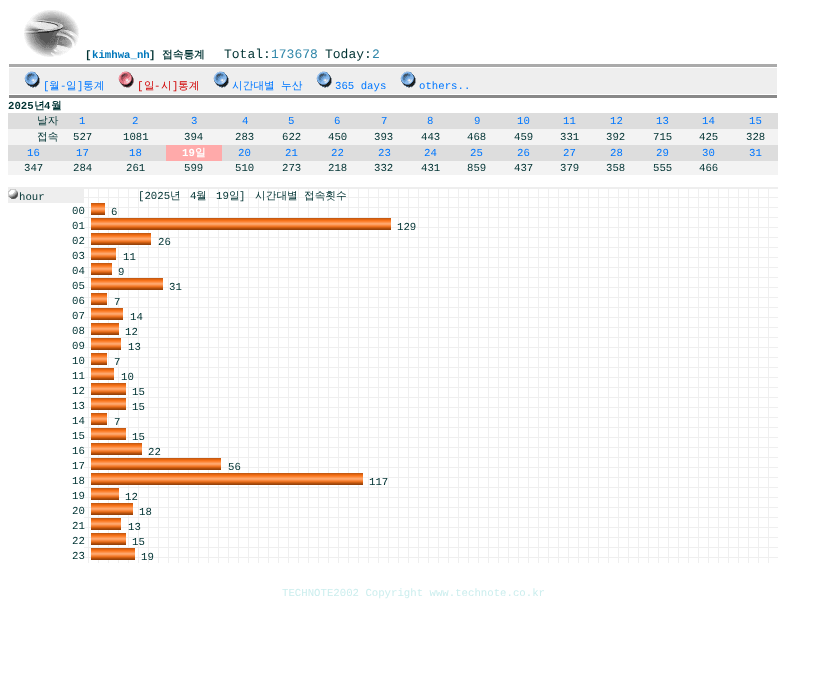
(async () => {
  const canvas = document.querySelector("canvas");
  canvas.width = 827;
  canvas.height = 687;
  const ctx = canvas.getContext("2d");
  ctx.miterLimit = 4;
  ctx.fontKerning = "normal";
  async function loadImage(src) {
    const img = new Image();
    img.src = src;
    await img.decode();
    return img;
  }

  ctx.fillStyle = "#ffffff";
  ctx.fillRect(0, 0, 827, 687);
  ctx.drawImage(await loadImage("img/1.png"), 24, 10, 55, 47);
  ctx.fillStyle = "#aaaaaa";
  ctx.fillRect(9, 64, 768, 3);
  ctx.fillStyle = "#eeeeee";
  ctx.fillRect(9, 68, 768, 26);
  ctx.drawImage(await loadImage("img/2.png"), 24, 71, 16, 17);
  ctx.drawImage(await loadImage("img/3.png"), 118, 71, 16, 17);
  ctx.drawImage(await loadImage("img/2.png"), 213, 71, 16, 17);
  ctx.drawImage(await loadImage("img/2.png"), 316, 71, 16, 17);
  ctx.drawImage(await loadImage("img/2.png"), 400, 71, 16, 17);
  for (const [x, y, w, h, color] of [
    [9, 95, 768, 3, "#888888"],
    [8, 113, 770, 16, "#dddddd"],
    [8, 129, 770, 16, "#f3f3f3"],
    [8, 145, 158, 16, "#dddddd"],
    [166, 145, 56, 16, "#ffaaaa"],
    [222, 145, 556, 16, "#dddddd"],
    [8, 161, 770, 14, "#f3f3f3"],
  ]) {
    ctx.fillStyle = color;
    ctx.fillRect(x, y, w, h);
  }
  ctx.drawImage(await loadImage("img/4.png"), 84, 189, 694, 374);
  ctx.fillStyle = "#eeeeee";
  ctx.fillRect(8, 187, 770, 2);
  ctx.fillRect(8, 189, 76, 14);
  ctx.drawImage(await loadImage("img/5.png"), 8, 189, 10, 10);
  ctx.drawImage(await loadImage("img/6.png"), 91, 203, 14, 12);
  ctx.drawImage(await loadImage("img/7.png"), 91, 218, 300, 12);
  ctx.drawImage(await loadImage("img/8.png"), 91, 233, 60, 12);
  ctx.drawImage(await loadImage("img/9.png"), 91, 248, 25, 12);
  ctx.drawImage(await loadImage("img/10.png"), 91, 263, 21, 12);
  ctx.drawImage(await loadImage("img/11.png"), 91, 278, 72, 12);
  ctx.drawImage(await loadImage("img/12.png"), 91, 293, 16, 12);
  ctx.drawImage(await loadImage("img/13.png"), 91, 308, 32, 12);
  ctx.drawImage(await loadImage("img/14.png"), 91, 323, 28, 12);
  ctx.drawImage(await loadImage("img/15.png"), 91, 338, 30, 12);
  ctx.drawImage(await loadImage("img/12.png"), 91, 353, 16, 12);
  ctx.drawImage(await loadImage("img/16.png"), 91, 368, 23, 12);
  ctx.drawImage(await loadImage("img/17.png"), 91, 383, 35, 12);
  ctx.drawImage(await loadImage("img/17.png"), 91, 398, 35, 12);
  ctx.drawImage(await loadImage("img/12.png"), 91, 413, 16, 12);
  ctx.drawImage(await loadImage("img/17.png"), 91, 428, 35, 12);
  ctx.drawImage(await loadImage("img/18.png"), 91, 443, 51, 12);
  ctx.drawImage(await loadImage("img/19.png"), 91, 458, 130, 12);
  ctx.drawImage(await loadImage("img/20.png"), 91, 473, 272, 12);
  ctx.drawImage(await loadImage("img/14.png"), 91, 488, 28, 12);
  ctx.drawImage(await loadImage("img/21.png"), 91, 503, 42, 12);
  ctx.drawImage(await loadImage("img/15.png"), 91, 518, 30, 12);
  ctx.drawImage(await loadImage("img/17.png"), 91, 533, 35, 12);
  ctx.drawImage(await loadImage("img/22.png"), 91, 548, 44, 12);
  ctx.font = "bold 10.7px Liberation Mono";
  ctx.fillStyle = "#003333";
  ctx.fillText("[", 85, 58);
  ctx.fillStyle = "#0077bb";
  ctx.fillText("kimhwa_nh", 92, 58);
  ctx.fillStyle = "#003333";
  ctx.fillText("]", 149, 58);
  ctx.font = "bold 10.7px WenQuanYi Zen Hei";
  ctx.fillText("접속통계", 162, 58);
  ctx.font = "13px Liberation Mono";
  ctx.fillText("Total:", 224, 58);
  ctx.fillStyle = "#3388aa";
  ctx.fillText("173678", 271, 58);
  ctx.fillStyle = "#003333";
  ctx.fillText("Today:", 325, 58);
  ctx.fillStyle = "#3388aa";
  ctx.fillText("2", 372, 58);
  ctx.font = "10.7px Liberation Mono";
  ctx.fillStyle = "#0077ff";
  ctx.fillText("[", 43, 89);
  ctx.font = "500 10.7px WenQuanYi Zen Hei";
  ctx.fillText("월", 49, 89);
  ctx.font = "10.7px Liberation Mono";
  ctx.fillText("-", 60, 89);
  ctx.font = "500 10.7px WenQuanYi Zen Hei";
  ctx.fillText("일", 66, 89);
  ctx.font = "10.7px Liberation Mono";
  ctx.fillText("]", 77, 89);
  ctx.font = "500 10.7px WenQuanYi Zen Hei";
  ctx.fillText("통계", 83, 89);
  ctx.font = "10.7px Liberation Mono";
  ctx.fillStyle = "#d00000";
  ctx.fillText("[", 137, 89);
  ctx.font = "500 10.7px WenQuanYi Zen Hei";
  ctx.fillText("일", 144, 89);
  ctx.font = "10.7px Liberation Mono";
  ctx.fillText("-", 154, 89);
  ctx.font = "500 10.7px WenQuanYi Zen Hei";
  ctx.fillText("시", 161, 89);
  ctx.font = "10.7px Liberation Mono";
  ctx.fillText("]", 172, 89);
  ctx.font = "500 10.7px WenQuanYi Zen Hei";
  ctx.fillText("통계", 178, 89);
  ctx.wordSpacing = "3px";
  ctx.fillStyle = "#0077ff";
  ctx.fillText("시간대별 누산", 232, 89);
  ctx.wordSpacing = "0px";
  ctx.font = "10.7px Liberation Mono";
  ctx.fillText("365 days", 335, 89);
  ctx.fillText("others..", 419, 89);
  ctx.font = "bold 10.7px Liberation Mono";
  ctx.fillStyle = "#003333";
  ctx.fillText("2025", 8, 109);
  ctx.font = "bold 10.7px WenQuanYi Zen Hei";
  ctx.fillText("년", 34, 109);
  ctx.font = "bold 10.7px Liberation Mono";
  ctx.fillText("4", 44, 109);
  ctx.font = "bold 10.7px WenQuanYi Zen Hei";
  ctx.fillText("월", 51, 109);
  ctx.font = "500 10.7px WenQuanYi Zen Hei";
  ctx.fillText("날자", 37, 124);
  ctx.font = "10.7px Liberation Mono";
  ctx.fillStyle = "#0077ff";
  for (const [text, x, y] of [
    ["1", 79, 124],
    ["2", 132, 124],
    ["3", 191, 124],
    ["4", 242, 124],
    ["5", 288, 124],
    ["6", 334, 124],
    ["7", 381, 124],
    ["8", 427, 124],
    ["9", 474, 124],
    ["10", 517, 124],
    ["11", 563, 124],
    ["12", 610, 124],
    ["13", 656, 124],
    ["14", 702, 124],
    ["15", 749, 124],
  ]) {
    ctx.fillText(text, x, y);
  }
  ctx.font = "500 10.7px WenQuanYi Zen Hei";
  ctx.fillStyle = "#003333";
  ctx.fillText("접속", 37, 140);
  ctx.font = "10.7px Liberation Mono";
  for (const [text, x, y] of [
    ["527", 73, 140],
    ["1081", 123, 140],
    ["394", 184, 140],
    ["283", 235, 140],
    ["622", 282, 140],
    ["450", 328, 140],
    ["393", 374, 140],
    ["443", 421, 140],
    ["468", 467, 140],
    ["459", 514, 140],
    ["331", 560, 140],
    ["392", 606, 140],
    ["715", 653, 140],
    ["425", 699, 140],
    ["328", 746, 140],
  ]) {
    ctx.fillText(text, x, y);
  }
  ctx.fillStyle = "#0077ff";
  for (const [text, x, y] of [
    ["16", 27, 156],
    ["17", 76, 156],
    ["18", 129, 156],
  ]) {
    ctx.fillText(text, x, y);
  }
  ctx.font = "bold 10.7px Liberation Mono";
  ctx.fillStyle = "#ffffff";
  ctx.fillText("19", 182, 156);
  ctx.font = "bold 10.7px WenQuanYi Zen Hei";
  ctx.fillText("일", 195, 156);
  ctx.font = "10.7px Liberation Mono";
  ctx.fillStyle = "#0077ff";
  for (const [text, x, y] of [
    ["20", 238, 156],
    ["21", 285, 156],
    ["22", 331, 156],
    ["23", 378, 156],
    ["24", 424, 156],
    ["25", 470, 156],
    ["26", 517, 156],
    ["27", 563, 156],
    ["28", 610, 156],
    ["29", 656, 156],
    ["30", 702, 156],
    ["31", 749, 156],
  ]) {
    ctx.fillText(text, x, y);
  }
  ctx.fillStyle = "#003333";
  for (const [text, x, y] of [
    ["347", 24, 171],
    ["284", 73, 171],
    ["261", 126, 171],
    ["599", 184, 171],
    ["510", 235, 171],
    ["273", 282, 171],
    ["218", 328, 171],
    ["332", 374, 171],
    ["431", 421, 171],
    ["859", 467, 171],
    ["437", 514, 171],
    ["379", 560, 171],
    ["358", 606, 171],
    ["555", 653, 171],
    ["466", 699, 171],
    ["hour", 19, 200],
    ["[2025", 138, 199],
  ]) {
    ctx.fillText(text, x, y);
  }
  ctx.font = "500 10.7px WenQuanYi Zen Hei";
  ctx.fillText("년", 170, 199);
  ctx.font = "10.7px Liberation Mono";
  ctx.fillText("4", 190, 199);
  ctx.font = "500 10.7px WenQuanYi Zen Hei";
  ctx.fillText("월", 196, 199);
  ctx.font = "10.7px Liberation Mono";
  ctx.fillText("19", 216, 199);
  ctx.font = "500 10.7px WenQuanYi Zen Hei";
  ctx.fillText("일", 229, 199);
  ctx.font = "10.7px Liberation Mono";
  ctx.fillText("]", 239, 199);
  ctx.wordSpacing = "3px";
  ctx.font = "500 10.7px WenQuanYi Zen Hei";
  ctx.fillText("시간대별 접속횟수", 255, 199);
  ctx.wordSpacing = "0px";
  ctx.font = "10.7px Liberation Mono";
  for (const [text, x, y] of [
    ["00", 72, 214],
    ["6", 111, 215],
    ["01", 72, 229],
    ["129", 397, 230],
    ["02", 72, 244],
    ["26", 158, 245],
    ["03", 72, 259],
    ["11", 123, 260],
    ["04", 72, 274],
    ["9", 118, 275],
    ["05", 72, 289],
    ["31", 169, 290],
    ["06", 72, 304],
    ["7", 114, 305],
    ["07", 72, 319],
    ["14", 130, 320],
    ["08", 72, 334],
    ["12", 125, 335],
    ["09", 72, 349],
    ["13", 128, 350],
    ["10", 72, 364],
    ["7", 114, 365],
    ["11", 72, 379],
    ["10", 121, 380],
    ["12", 72, 394],
    ["15", 132, 395],
    ["13", 72, 409],
    ["15", 132, 410],
    ["14", 72, 424],
    ["7", 114, 425],
    ["15", 72, 439],
    ["15", 132, 440],
    ["16", 72, 454],
    ["22", 148, 455],
    ["17", 72, 469],
    ["56", 228, 470],
    ["18", 72, 484],
    ["117", 369, 485],
    ["19", 72, 499],
    ["12", 125, 500],
    ["20", 72, 514],
    ["18", 139, 515],
    ["21", 72, 529],
    ["13", 128, 530],
    ["22", 72, 544],
    ["15", 132, 545],
    ["23", 72, 559],
    ["19", 141, 560],
  ]) {
    ctx.fillText(text, x, y);
  }
  ctx.fillStyle = "#cceeee";
  ctx.fillText("TECHNOTE2002 Copyright www.technote.co.kr", 282, 596);
})();
